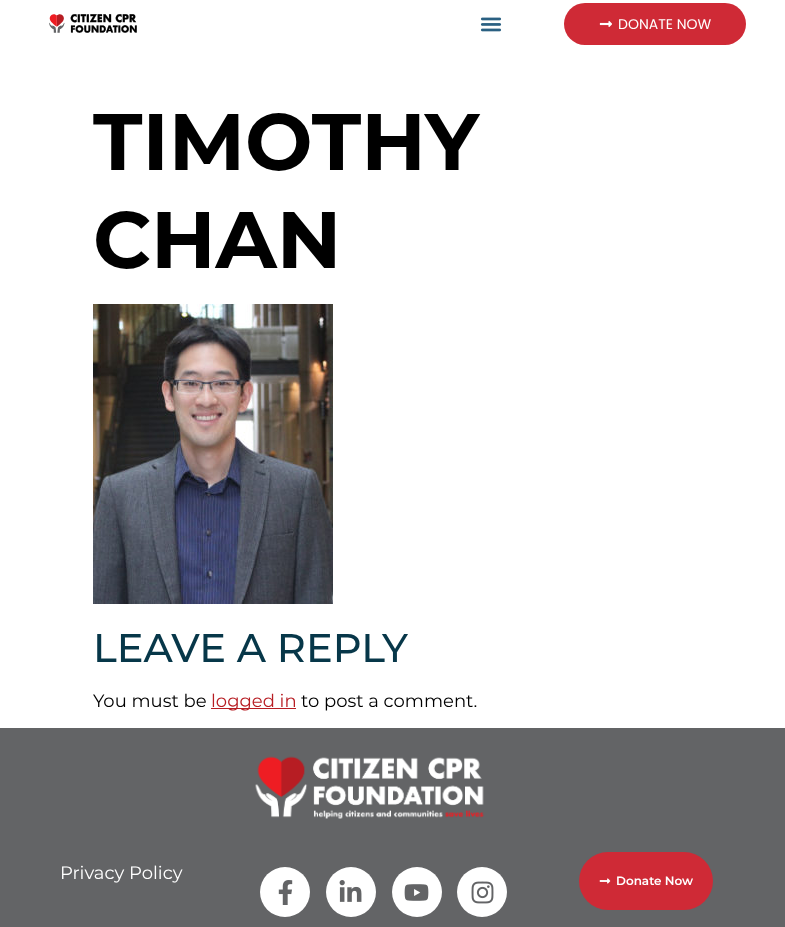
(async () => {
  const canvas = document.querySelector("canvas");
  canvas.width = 785;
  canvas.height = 927;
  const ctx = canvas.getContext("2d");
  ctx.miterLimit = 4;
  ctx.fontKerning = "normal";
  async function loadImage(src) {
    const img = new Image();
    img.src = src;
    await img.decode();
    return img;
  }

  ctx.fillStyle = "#ffffff";
  ctx.fillRect(0, 0, 785, 927);
  ctx.drawImage(await loadImage("img/1.png"), 49, 14, 88, 19);
  ctx.drawImage(await loadImage("img/2.png"), 480, 17, 22, 15);
  ctx.fillStyle = "#cf2a36";
  ctx.beginPath();
  ctx.roundRect(564, 3, 182, 42, 21);
  ctx.fill();
  ctx.drawImage(await loadImage("img/3.png"), 599, 21, 13, 6);
  ctx.drawImage(await loadImage("img/4.png"), 93, 304, 240, 300);
  ctx.fillStyle = "#b71d23";
  ctx.fillRect(211, 708, 85, 1);
  ctx.fillStyle = "#636466";
  ctx.fillRect(0, 728, 785, 199);
  ctx.drawImage(await loadImage("img/5.png"), 255, 756, 229, 63);
  ctx.fillStyle = "#ffffff";
  ctx.beginPath();
  ctx.arc(285, 892, 25, 0, Math.PI * 2);
  ctx.fill();
  ctx.drawImage(await loadImage("img/6.png"), 278, 880, 15, 25);
  ctx.beginPath();
  ctx.arc(351, 892, 25, 0, Math.PI * 2);
  ctx.fill();
  ctx.drawImage(await loadImage("img/7.png"), 339, 880, 23, 22);
  ctx.beginPath();
  ctx.arc(417, 892, 25, 0, Math.PI * 2);
  ctx.fill();
  ctx.drawImage(await loadImage("img/8.png"), 404, 884, 25, 17);
  ctx.beginPath();
  ctx.arc(482, 892, 25, 0, Math.PI * 2);
  ctx.fill();
  ctx.drawImage(await loadImage("img/9.png"), 471, 881, 23, 23);
  ctx.fillStyle = "#cf2a36";
  ctx.beginPath();
  ctx.roundRect(579, 852, 134, 58, 29);
  ctx.fill();
  ctx.drawImage(await loadImage("img/10.png"), 599, 878, 12, 6);
  ctx.font = "14px Poppins";
  ctx.fillStyle = "#ffffff";
  ctx.fillText("DONATE NOW", 618, 29);
  ctx.font = "bold 80px Montserrat";
  ctx.fillStyle = "#000000";
  ctx.fillText("TIMOTHY", 93, 170);
  ctx.fillText("CHAN", 93, 268);
  ctx.font = "500 40px Montserrat";
  ctx.fillStyle = "#073749";
  ctx.fillText("LEAVE A REPLY", 93, 662);
  ctx.font = "18px Montserrat";
  ctx.fillStyle = "#000000";
  ctx.fillText("You must be", 93, 707);
  ctx.fillStyle = "#b71d23";
  ctx.fillText("logged in", 211, 707);
  ctx.fillStyle = "#000000";
  ctx.fillText("to post a comment.", 301, 707);
  ctx.fillStyle = "#ffffff";
  ctx.fillText("Privacy Policy", 60, 879);
  ctx.font = "600 12px Montserrat";
  ctx.fillText("Donate Now", 616, 885);
})();
